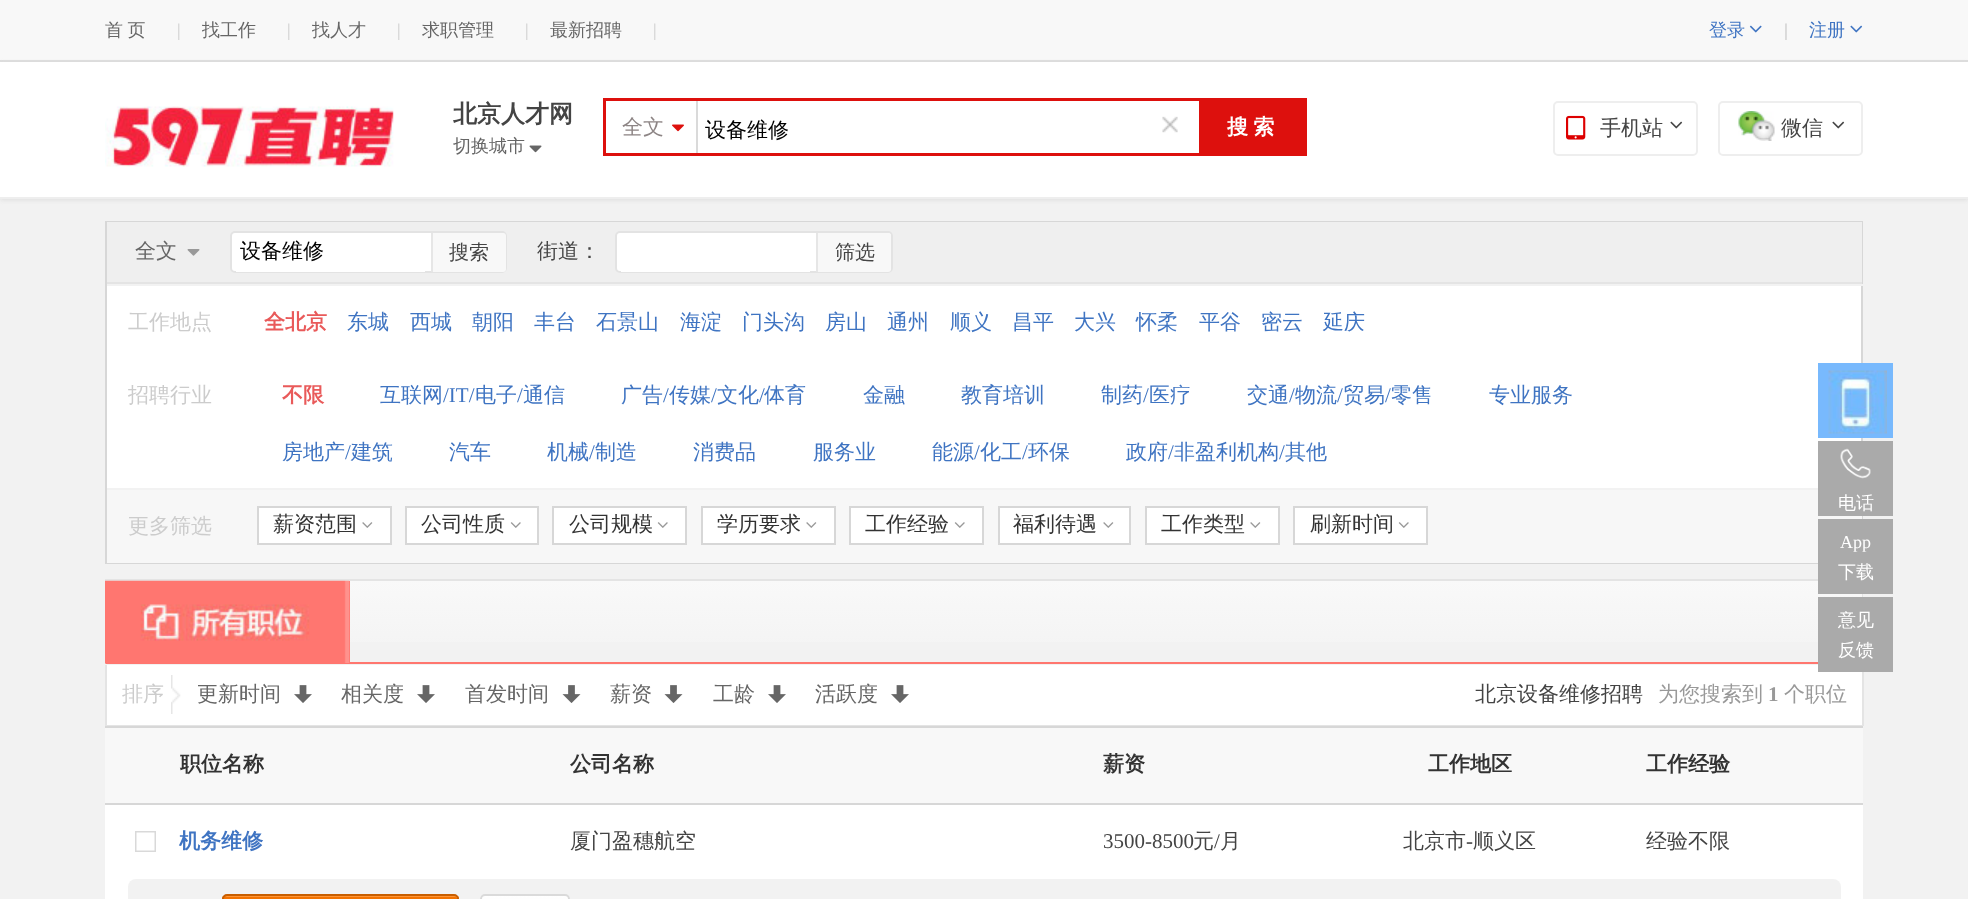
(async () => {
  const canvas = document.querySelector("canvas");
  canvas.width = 1968;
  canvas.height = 899;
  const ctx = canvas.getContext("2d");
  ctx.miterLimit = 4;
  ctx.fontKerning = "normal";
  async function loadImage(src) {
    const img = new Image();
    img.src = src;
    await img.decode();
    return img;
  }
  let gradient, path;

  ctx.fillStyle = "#f2f2f2";
  ctx.fillRect(0, 0, 1968, 899);
  ctx.fillStyle = "#f8f8f8";
  ctx.fillRect(0, 0, 1968, 60);
  ctx.fillStyle = "#dddddd";
  ctx.fillRect(0, 60, 1968, 2);
  ctx.drawImage(await loadImage("img/1.png"), 1749, 25, 13, 8);
  ctx.drawImage(await loadImage("img/2.png"), 1850, 25, 13, 8);
  ctx.filter = "blur(2px)";
  ctx.beginPath();
  ctx.rect(0, 63, 1968, 137);
  ctx.fill();
  ctx.filter = "none";
  ctx.fillStyle = "#ffffff";
  ctx.fillRect(0, 62, 1968, 135);
  ctx.fillStyle = "#eeeeee";
  ctx.fillRect(0, 197, 1968, 2);
  ctx.drawImage(await loadImage("img/3.png"), 105, 106, 289, 61);
  ctx.drawImage(await loadImage("img/4.png"), 529, 145, 13, 8);
  ctx.strokeStyle = "#dd100d";
  ctx.lineWidth = 3;
  ctx.strokeRect(604.5, 99.5, 701, 55);
  ctx.fillStyle = "#dadada";
  ctx.fillRect(696, 101, 2, 52);
  ctx.drawImage(await loadImage("img/5.png"), 672, 124, 12, 8);
  ctx.drawImage(await loadImage("img/6.png"), 1162, 116, 16, 17);
  ctx.fillStyle = "#dd100d";
  ctx.fillRect(1199, 101, 105, 52);
  ctx.beginPath();
  ctx.roundRect(1554, 102, 143, 53, 4);
  ctx.strokeStyle = "#eeeeee";
  ctx.lineWidth = 2;
  ctx.stroke();
  ctx.drawImage(await loadImage("img/7.png"), 1566, 115, 20, 25);
  ctx.drawImage(await loadImage("img/8.png"), 1670, 121, 13, 8);
  ctx.beginPath();
  ctx.roundRect(1719, 102, 143, 53, 4);
  ctx.stroke();
  ctx.drawImage(await loadImage("img/9.png"), 1738, 111, 37, 30);
  ctx.drawImage(await loadImage("img/8.png"), 1832, 121, 13, 8);
  ctx.fillStyle = "#ffffff";
  ctx.fillRect(107, 286, 1754, 202);
  ctx.strokeStyle = "#d7d7d7";
  ctx.strokeRect(106, 222, 1756, 341);
  ctx.fillStyle = "#efefef";
  ctx.fillRect(107, 222, 1755, 60);
  ctx.fillStyle = "#e4e4e4";
  ctx.fillRect(107, 282, 1755, 2);
  ctx.drawImage(await loadImage("img/10.png"), 187, 249, 13, 7);
  ctx.fillStyle = "#ffffff";
  ctx.beginPath();
  ctx.roundRect(231, 232, 275, 40, 4);
  ctx.fill();
  ctx.strokeStyle = "#e3e3e3";
  ctx.stroke();
  ctx.fillRect(236, 271, 189, 1);
  ctx.fillStyle = "#f8f8f8";
  ctx.beginPath();
  ctx.roundRect(431, 233, 75, 39, [0, 3, 3, 0]);
  ctx.fill();
  ctx.fillStyle = "#e6e6e6";
  ctx.fillRect(431, 233, 2, 39);
  ctx.fillStyle = "#ffffff";
  ctx.beginPath();
  ctx.roundRect(616, 232, 276, 40, 4);
  ctx.fill();
  ctx.stroke();
  ctx.fillStyle = "#f8f8f8";
  ctx.beginPath();
  ctx.roundRect(816, 233, 75, 39, [0, 3, 3, 0]);
  ctx.fill();
  for (const [x, y, w, h, color] of [
    [816, 233, 2, 39, "#e6e6e6"],
    [621, 271, 189, 1, "#ffffff"],
    [1861, 284, 2, 2, "#f2f2f2"],
    [107, 490, 1755, 73, "#f7f7f7"],
  ]) {
    ctx.fillStyle = color;
    ctx.fillRect(x, y, w, h);
  }
  ctx.fillStyle = "#ffffff";
  ctx.beginPath();
  ctx.rect(258, 507, 133, 37);
  ctx.fill();
  ctx.strokeStyle = "#d7d7d7";
  ctx.stroke();
  ctx.drawImage(await loadImage("img/11.png"), 362, 522, 11, 6);
  ctx.beginPath();
  ctx.rect(406, 507, 132, 37);
  ctx.fill();
  ctx.stroke();
  ctx.drawImage(await loadImage("img/12.png"), 510, 522, 11, 6);
  ctx.beginPath();
  ctx.rect(553, 507, 133, 37);
  ctx.fill();
  ctx.stroke();
  ctx.drawImage(await loadImage("img/12.png"), 657, 522, 11, 6);
  ctx.beginPath();
  ctx.rect(702, 507, 133, 37);
  ctx.fill();
  ctx.stroke();
  ctx.drawImage(await loadImage("img/11.png"), 806, 522, 11, 6);
  ctx.beginPath();
  ctx.rect(850, 507, 133, 37);
  ctx.fill();
  ctx.stroke();
  ctx.drawImage(await loadImage("img/12.png"), 954, 522, 11, 6);
  ctx.beginPath();
  ctx.rect(999, 507, 131, 37);
  ctx.fill();
  ctx.stroke();
  ctx.drawImage(await loadImage("img/11.png"), 1103, 522, 11, 6);
  ctx.beginPath();
  ctx.rect(1146, 507, 133, 37);
  ctx.fill();
  ctx.stroke();
  ctx.drawImage(await loadImage("img/11.png"), 1250, 522, 11, 6);
  ctx.beginPath();
  ctx.rect(1294, 507, 133, 37);
  ctx.fill();
  ctx.stroke();
  ctx.drawImage(await loadImage("img/12.png"), 1398, 522, 11, 6);
  gradient = ctx.createLinearGradient(984, 580, 984, 662);
  gradient.addColorStop(0, "#f9f9f9");
  gradient.addColorStop(1, "#f3f3f3");
  ctx.fillStyle = gradient;
  ctx.fillRect(350, 581, 1512, 61);
  ctx.fillStyle = "#e4e4e4";
  ctx.fillRect(105, 579, 1713, 2);
  path = new Path2D("M1863 579V664L1862 662V580Z");
  ctx.fill(path);
  ctx.fillStyle = "#ff766f";
  path = new Path2D("M1863 664H105L106 662H1862Z");
  ctx.fill(path);
  ctx.fillStyle = "#e4e4e4";
  path = new Path2D("M105 664V579L106 580V662Z");
  ctx.fill(path);
  ctx.fillStyle = "#ff766f";
  ctx.fillRect(349, 581, 1, 82);
  ctx.drawImage(await loadImage("img/13.png"), 105, 580, 245, 83);
  for (const [x, y, w, h, color] of [
    [107, 665, 1755, 60, "#ffffff"],
    [1862, 665, 2, 61, "#e4e4e4"],
    [105, 725, 1758, 1, "#e4e4e4"],
    [105, 665, 2, 61, "#e4e4e4"],
  ]) {
    ctx.fillStyle = color;
    ctx.fillRect(x, y, w, h);
  }
  ctx.drawImage(await loadImage("img/14.png"), 171, 675, 10, 39);
  ctx.drawImage(await loadImage("img/15.png"), 294, 685, 18, 18);
  ctx.drawImage(await loadImage("img/15.png"), 417, 685, 18, 18);
  ctx.drawImage(await loadImage("img/16.png"), 562, 685, 19, 18);
  ctx.drawImage(await loadImage("img/16.png"), 664, 685, 19, 18);
  ctx.drawImage(await loadImage("img/15.png"), 768, 685, 18, 18);
  ctx.drawImage(await loadImage("img/15.png"), 891, 685, 18, 18);
  for (const [x, y, w, h, color] of [
    [105, 805, 1758, 94, "#ffffff"],
    [105, 728, 1758, 75, "#f8f8f8"],
    [105, 726, 1758, 2, "#d7d7d7"],
    [105, 803, 1758, 2, "#d7d7d7"],
  ]) {
    ctx.fillStyle = color;
    ctx.fillRect(x, y, w, h);
  }
  ctx.drawImage(await loadImage("img/17.png"), 135, 831, 21, 21);
  ctx.fillStyle = "#f2f2f2";
  ctx.beginPath();
  ctx.roundRect(128, 879, 1713, 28, 8);
  ctx.fill();
  ctx.save();
  ctx.beginPath();
  ctx.roundRect(222, 894, 237, 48, 5);
  ctx.clip();
  gradient = ctx.createLinearGradient(224, 896, 224, 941);
  gradient.addColorStop(0, "#f47300");
  gradient.addColorStop(1, "#d56400");
  ctx.fillStyle = gradient;
  ctx.fillRect(222, 896, 237, 3);
  ctx.restore();
  ctx.fillStyle = "#ff9435";
  path = new Path2D("M226 897H454C456 897 458 898 458 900C458 898 457 896 455 896H227C225 896 224 898 224 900C224 898 225 897 226 897Z");
  ctx.fill(path);
  ctx.beginPath();
  ctx.roundRect(223, 895, 235, 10, 4);
  ctx.strokeStyle = "#c85e00";
  ctx.stroke();
  ctx.save();
  ctx.beginPath();
  ctx.roundRect(480, 894, 90, 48, 5);
  ctx.clip();
  gradient = ctx.createLinearGradient(482, 896, 482, 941);
  gradient.addColorStop(0, "#ffffff");
  gradient.addColorStop(1, "#ececec");
  ctx.fillStyle = gradient;
  ctx.fillRect(480, 896, 90, 3);
  ctx.restore();
  ctx.beginPath();
  ctx.roundRect(481, 895, 88, 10, 4);
  ctx.strokeStyle = "#dadada";
  ctx.stroke();
  ctx.fillStyle = "#78b9fd";
  ctx.fillRect(1818, 363, 75, 75);
  ctx.drawImage(await loadImage("img/18.png"), 1828, 370, 59, 64);
  ctx.fillStyle = "#aaaaaa";
  ctx.fillRect(1818, 441, 75, 75);
  ctx.drawImage(await loadImage("img/19.png"), 1840, 448, 31, 31);
  ctx.fillRect(1818, 519, 75, 75);
  ctx.fillRect(1818, 597, 75, 75);
  ctx.wordSpacing = "-1px";
  ctx.font = "500 18px WenQuanYi Zen Hei";
  ctx.fillStyle = "#666666";
  ctx.fillText("首 页", 105, 36);
  ctx.wordSpacing = "0px";
  ctx.font = "18px Liberation Serif";
  ctx.fillStyle = "#cccccc";
  ctx.fillText("|", 177, 36);
  ctx.font = "500 18px WenQuanYi Zen Hei";
  ctx.fillStyle = "#666666";
  ctx.fillText("找工作", 202, 36);
  ctx.font = "18px Liberation Serif";
  ctx.fillStyle = "#cccccc";
  ctx.fillText("|", 287, 36);
  ctx.font = "500 18px WenQuanYi Zen Hei";
  ctx.fillStyle = "#666666";
  ctx.fillText("找人才", 312, 36);
  ctx.font = "18px Liberation Serif";
  ctx.fillStyle = "#cccccc";
  ctx.fillText("|", 397, 36);
  ctx.font = "500 18px WenQuanYi Zen Hei";
  ctx.fillStyle = "#666666";
  ctx.fillText("求职管理", 422, 36);
  ctx.font = "18px Liberation Serif";
  ctx.fillStyle = "#cccccc";
  ctx.fillText("|", 525, 36);
  ctx.font = "500 18px WenQuanYi Zen Hei";
  ctx.fillStyle = "#666666";
  ctx.fillText("最新招聘", 550, 36);
  ctx.font = "18px Liberation Serif";
  ctx.fillStyle = "#cccccc";
  ctx.fillText("|", 653, 36);
  ctx.font = "500 18px WenQuanYi Zen Hei";
  ctx.fillStyle = "#3f74c2";
  ctx.fillText("登录", 1709, 36);
  ctx.font = "bold 18px Liberation Serif";
  ctx.fillStyle = "#cccccc";
  ctx.fillText("|", 1784, 36);
  ctx.font = "500 18px WenQuanYi Zen Hei";
  ctx.fillStyle = "#3f74c2";
  ctx.fillText("注册", 1809, 36);
  ctx.font = "bold 24px WenQuanYi Zen Hei";
  ctx.fillStyle = "#444444";
  ctx.fillText("北京人才网", 453, 122);
  ctx.font = "500 18px WenQuanYi Zen Hei";
  ctx.fillStyle = "#666666";
  ctx.fillText("切换城市", 453, 152);
  ctx.font = "500 21px WenQuanYi Zen Hei";
  ctx.fillStyle = "#8d8585";
  ctx.fillText("全文", 622, 134);
  ctx.fillStyle = "#000000";
  ctx.fillText("设备维修", 705, 137);
  ctx.wordSpacing = "-1px";
  ctx.font = "bold 21px WenQuanYi Zen Hei";
  ctx.fillStyle = "#ffffff";
  ctx.fillText("搜 索", 1227, 134);
  ctx.wordSpacing = "0px";
  ctx.font = "500 21px WenQuanYi Zen Hei";
  ctx.fillStyle = "#444444";
  ctx.fillText("手机站", 1600, 135);
  ctx.fillText("微信", 1781, 135);
  ctx.fillStyle = "#666666";
  ctx.fillText("全文", 135, 258);
  ctx.fillStyle = "#000000";
  ctx.fillText("设备维修", 240, 258);
  ctx.font = "500 20px WenQuanYi Zen Hei";
  ctx.fillStyle = "#444444";
  ctx.fillText("搜索", 449, 259);
  ctx.font = "500 21px WenQuanYi Zen Hei";
  ctx.fillText("街道：", 537, 258);
  ctx.font = "500 20px WenQuanYi Zen Hei";
  ctx.fillText("筛选", 835, 259);
  ctx.font = "500 21px WenQuanYi Zen Hei";
  ctx.fillStyle = "#cccccc";
  ctx.fillText("工作地点", 128, 329);
  ctx.font = "bold 21px WenQuanYi Zen Hei";
  ctx.fillStyle = "#e95a5a";
  ctx.fillText("全北京", 264, 329);
  ctx.font = "500 21px WenQuanYi Zen Hei";
  ctx.fillStyle = "#3f74c2";
  for (const [text, x, y] of [
    ["东城", 347, 329],
    ["西城", 410, 329],
    ["朝阳", 472, 329],
    ["丰台", 534, 329],
    ["石景山", 596, 329],
    ["海淀", 680, 329],
    ["门头沟", 742, 329],
    ["房山", 825, 329],
    ["通州", 887, 329],
    ["顺义", 950, 329],
    ["昌平", 1012, 329],
    ["大兴", 1074, 329],
    ["怀柔", 1136, 329],
    ["平谷", 1199, 329],
    ["密云", 1261, 329],
    ["延庆", 1323, 329],
  ]) {
    ctx.fillText(text, x, y);
  }
  ctx.fillStyle = "#cccccc";
  ctx.fillText("招聘行业", 128, 402);
  ctx.font = "bold 21px WenQuanYi Zen Hei";
  ctx.fillStyle = "#e95a5a";
  ctx.fillText("不限", 282, 402);
  ctx.font = "500 21px WenQuanYi Zen Hei";
  ctx.fillStyle = "#3f74c2";
  ctx.fillText("互联网", 380, 402);
  ctx.font = "21px Liberation Serif";
  ctx.fillText("/IT/", 443, 402);
  ctx.font = "500 21px WenQuanYi Zen Hei";
  ctx.fillText("电子", 475, 402);
  ctx.font = "21px Liberation Serif";
  ctx.fillText("/", 517, 402);
  ctx.font = "500 21px WenQuanYi Zen Hei";
  ctx.fillText("通信", 523, 402);
  ctx.fillText("广告", 621, 402);
  ctx.font = "21px Liberation Serif";
  ctx.fillText("/", 663, 402);
  ctx.font = "500 21px WenQuanYi Zen Hei";
  ctx.fillText("传媒", 669, 402);
  ctx.font = "21px Liberation Serif";
  ctx.fillText("/", 711, 402);
  ctx.font = "500 21px WenQuanYi Zen Hei";
  ctx.fillText("文化", 717, 402);
  ctx.font = "21px Liberation Serif";
  ctx.fillText("/", 759, 402);
  ctx.font = "500 21px WenQuanYi Zen Hei";
  for (const [text, x, y] of [
    ["体育", 764, 402],
    ["金融", 863, 402],
    ["教育培训", 961, 402],
    ["制药", 1101, 402],
  ]) {
    ctx.fillText(text, x, y);
  }
  ctx.font = "21px Liberation Serif";
  ctx.fillText("/", 1143, 402);
  ctx.font = "500 21px WenQuanYi Zen Hei";
  ctx.fillText("医疗", 1149, 402);
  ctx.fillText("交通", 1247, 402);
  ctx.font = "21px Liberation Serif";
  ctx.fillText("/", 1289, 402);
  ctx.font = "500 21px WenQuanYi Zen Hei";
  ctx.fillText("物流", 1295, 402);
  ctx.font = "21px Liberation Serif";
  ctx.fillText("/", 1337, 402);
  ctx.font = "500 21px WenQuanYi Zen Hei";
  ctx.fillText("贸易", 1343, 402);
  ctx.font = "21px Liberation Serif";
  ctx.fillText("/", 1385, 402);
  ctx.font = "500 21px WenQuanYi Zen Hei";
  for (const [text, x, y] of [
    ["零售", 1391, 402],
    ["专业服务", 1489, 402],
    ["房地产", 282, 459],
  ]) {
    ctx.fillText(text, x, y);
  }
  ctx.font = "21px Liberation Serif";
  ctx.fillText("/", 345, 459);
  ctx.font = "500 21px WenQuanYi Zen Hei";
  for (const [text, x, y] of [
    ["建筑", 351, 459],
    ["汽车", 449, 459],
    ["机械", 547, 459],
  ]) {
    ctx.fillText(text, x, y);
  }
  ctx.font = "21px Liberation Serif";
  ctx.fillText("/", 589, 459);
  ctx.font = "500 21px WenQuanYi Zen Hei";
  for (const [text, x, y] of [
    ["制造", 595, 459],
    ["消费品", 693, 459],
    ["服务业", 813, 459],
    ["能源", 932, 459],
  ]) {
    ctx.fillText(text, x, y);
  }
  ctx.font = "21px Liberation Serif";
  ctx.fillText("/", 974, 459);
  ctx.font = "500 21px WenQuanYi Zen Hei";
  ctx.fillText("化工", 980, 459);
  ctx.font = "21px Liberation Serif";
  ctx.fillText("/", 1022, 459);
  ctx.font = "500 21px WenQuanYi Zen Hei";
  ctx.fillText("环保", 1028, 459);
  ctx.fillText("政府", 1126, 459);
  ctx.font = "21px Liberation Serif";
  ctx.fillText("/", 1168, 459);
  ctx.font = "500 21px WenQuanYi Zen Hei";
  ctx.fillText("非盈利机构", 1174, 459);
  ctx.font = "21px Liberation Serif";
  ctx.fillText("/", 1279, 459);
  ctx.font = "500 21px WenQuanYi Zen Hei";
  ctx.fillText("其他", 1285, 459);
  ctx.fillStyle = "#cccccc";
  ctx.fillText("更多筛选", 128, 533);
  ctx.fillStyle = "#333333";
  for (const [text, x, y] of [
    ["薪资范围", 273, 531],
    ["公司性质", 421, 531],
    ["公司规模", 569, 531],
    ["学历要求", 717, 531],
    ["工作经验", 865, 531],
    ["福利待遇", 1013, 531],
    ["工作类型", 1161, 531],
    ["刷新时间", 1310, 531],
  ]) {
    ctx.fillText(text, x, y);
  }
  ctx.fillStyle = "#cccccc";
  ctx.fillText("排序", 122, 701);
  ctx.fillStyle = "#666666";
  for (const [text, x, y] of [
    ["更新时间", 197, 701],
    ["相关度", 341, 701],
    ["首发时间", 465, 701],
    ["薪资", 610, 701],
    ["工龄", 713, 701],
    ["活跃度", 815, 701],
  ]) {
    ctx.fillText(text, x, y);
  }
  ctx.fillStyle = "#444444";
  ctx.fillText("北京设备维修招聘", 1475, 701);
  ctx.fillStyle = "#999999";
  ctx.fillText("为您搜索到", 1658, 701);
  ctx.font = "bold 21px Liberation Serif";
  ctx.fillText("1", 1768, 701);
  ctx.font = "500 21px WenQuanYi Zen Hei";
  ctx.fillText("个职位", 1784, 701);
  ctx.font = "bold 21px WenQuanYi Zen Hei";
  ctx.fillStyle = "#333333";
  for (const [text, x, y] of [
    ["职位名称", 180, 771],
    ["公司名称", 570, 771],
    ["薪资", 1103, 771],
    ["工作地区", 1428, 771],
    ["工作经验", 1646, 771],
  ]) {
    ctx.fillText(text, x, y);
  }
  ctx.fillStyle = "#3f74c2";
  ctx.fillText("机务维修", 179, 848);
  ctx.font = "500 21px WenQuanYi Zen Hei";
  ctx.fillStyle = "#444444";
  ctx.fillText("厦门盈穗航空", 570, 848);
  ctx.font = "21px Liberation Serif";
  ctx.fillText("3500-8500", 1103, 848);
  ctx.font = "500 21px WenQuanYi Zen Hei";
  ctx.fillText("元", 1193, 848);
  ctx.font = "21px Liberation Serif";
  ctx.fillText("/", 1214, 848);
  ctx.font = "500 21px WenQuanYi Zen Hei";
  ctx.fillText("月", 1220, 848);
  ctx.fillText("北京市", 1403, 848);
  ctx.font = "21px Liberation Serif";
  ctx.fillText("-", 1466, 848);
  ctx.font = "500 21px WenQuanYi Zen Hei";
  ctx.fillText("顺义区", 1473, 848);
  ctx.fillText("经验不限", 1646, 848);
  ctx.font = "500 18px WenQuanYi Zen Hei";
  ctx.fillStyle = "#ffffff";
  ctx.fillText("电话", 1838, 509);
  ctx.font = "18px Liberation Serif";
  ctx.fillText("App", 1840, 548);
  ctx.font = "500 18px WenQuanYi Zen Hei";
  for (const [text, x, y] of [
    ["下载", 1838, 578],
    ["意见", 1838, 626],
    ["反馈", 1838, 656],
  ]) {
    ctx.fillText(text, x, y);
  }
})();
